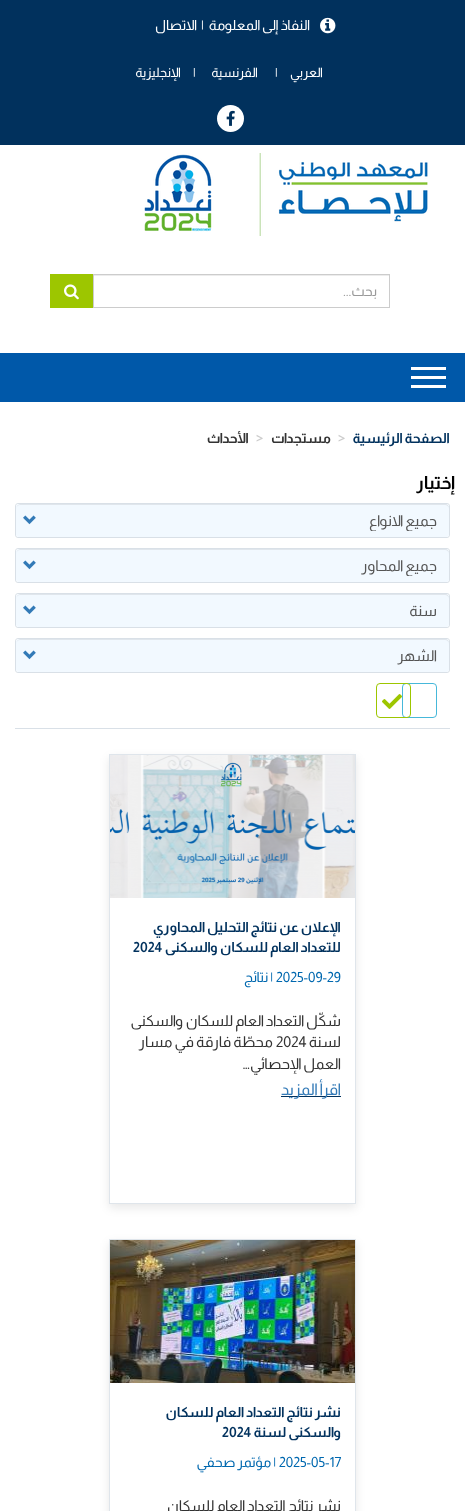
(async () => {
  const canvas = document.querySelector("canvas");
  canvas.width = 465;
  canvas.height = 1511;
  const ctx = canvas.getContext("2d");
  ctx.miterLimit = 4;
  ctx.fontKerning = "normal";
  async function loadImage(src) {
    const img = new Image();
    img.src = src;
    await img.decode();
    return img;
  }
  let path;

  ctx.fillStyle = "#ffffff";
  ctx.fillRect(0, 0, 465, 1511);
  ctx.fillStyle = "#01315d";
  ctx.fillRect(0, 0, 465, 145);
  ctx.drawImage(await loadImage("img/1.png"), 320, 17, 16, 17);
  ctx.fillStyle = "#ffffff";
  ctx.beginPath();
  ctx.arc(230.5, 118.5, 13.5, 0, Math.PI * 2);
  ctx.fill();
  ctx.drawImage(await loadImage("img/2.png"), 226, 110, 9, 16);
  ctx.drawImage(await loadImage("img/3.png"), 144, 153, 284, 83);
  ctx.fillStyle = "#ececec";
  ctx.fillRect(94, 275, 295, 1);
  ctx.strokeStyle = "#cccccc";
  ctx.strokeRect(93.5, 274.5, 296, 33);
  ctx.fillStyle = "#9dc600";
  ctx.fillRect(50, 274, 43, 34);
  ctx.drawImage(await loadImage("img/4.png"), 64, 284, 15, 16);
  for (const [x, y, w, h, color] of [
    [0, 353, 465, 49, "#0058a9"],
    [411, 367, 35, 3, "#ffffff"],
    [411, 376, 35, 3, "#ffffff"],
    [411, 385, 35, 3, "#ffffff"],
    [15, 728, 435, 1, "#d9e0e7"],
  ]) {
    ctx.fillStyle = color;
    ctx.fillRect(x, y, w, h);
  }
  ctx.beginPath();
  ctx.roundRect(15.5, 503.5, 434, 34, 2.5);
  ctx.strokeStyle = "#d9e0e7";
  ctx.stroke();
  ctx.fillStyle = "#f2f9ff";
  ctx.beginPath();
  ctx.roundRect(16, 504, 433, 33, 3);
  ctx.fill();
  ctx.fillStyle = "#e0e6ec";
  path = new Path2D("M20 505H445C447 505 449 507 449 509C449 506 448 504 445 504H20L18 505L17 506L16 509C16 507 18 505 20 505Z");
  ctx.fill(path);
  ctx.drawImage(await loadImage("img/5.png"), 23, 515, 13, 10);
  ctx.beginPath();
  ctx.roundRect(15.5, 548.5, 434, 34, 2.5);
  ctx.stroke();
  ctx.fillStyle = "#f2f9ff";
  ctx.beginPath();
  ctx.roundRect(16, 549, 433, 33, 3);
  ctx.fill();
  ctx.fillStyle = "#e0e6ec";
  path = new Path2D("M20 550H445C447 550 449 552 449 554C449 551 448 549 445 549H20L18 550L17 551L16 554C16 552 18 550 20 550Z");
  ctx.fill(path);
  ctx.drawImage(await loadImage("img/5.png"), 23, 560, 13, 10);
  ctx.beginPath();
  ctx.roundRect(15.5, 593.5, 434, 34, 2.5);
  ctx.stroke();
  ctx.fillStyle = "#f2f9ff";
  ctx.beginPath();
  ctx.roundRect(16, 594, 433, 33, 3);
  ctx.fill();
  ctx.fillStyle = "#e0e6ec";
  path = new Path2D("M20 595H445C447 595 449 597 449 599C449 596 448 594 445 594H20L18 595L17 596L16 599C16 597 18 595 20 595Z");
  ctx.fill(path);
  ctx.drawImage(await loadImage("img/5.png"), 23, 605, 13, 10);
  ctx.beginPath();
  ctx.roundRect(15.5, 638.5, 434, 34, 2.5);
  ctx.stroke();
  ctx.fillStyle = "#f2f9ff";
  ctx.beginPath();
  ctx.roundRect(16, 639, 433, 33, 3);
  ctx.fill();
  ctx.fillStyle = "#e0e6ec";
  path = new Path2D("M20 640H445C447 640 449 642 449 644C449 641 448 639 445 639H20L18 640L17 641L16 644C16 642 18 640 20 640Z");
  ctx.fill(path);
  ctx.drawImage(await loadImage("img/5.png"), 23, 650, 13, 10);
  ctx.beginPath();
  ctx.roundRect(402.5, 683.5, 34, 34, 3.5);
  ctx.strokeStyle = "#46b8da";
  ctx.stroke();
  ctx.beginPath();
  ctx.roundRect(376.5, 683.5, 34, 34, 3.5);
  ctx.strokeStyle = "#9dc600";
  ctx.stroke();
  ctx.drawImage(await loadImage("img/6.png"), 382, 694, 20, 15);
  ctx.save();
  path = new Path2D("M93 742H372V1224H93ZM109 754H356V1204H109Z");
  ctx.clip(path, "evenodd");
  ctx.fillStyle = "rgba(0, 0, 0, 0.09)";
  ctx.filter = "blur(5px)";
  ctx.beginPath();
  ctx.rect(109, 758, 247, 450);
  ctx.fill();
  ctx.filter = "none";
  ctx.restore();
  ctx.strokeStyle = "#dfe5eb";
  ctx.strokeRect(109.5, 754.5, 246, 449);
  ctx.drawImage(await loadImage("img/7.png"), 110, 755, 245, 143);
  ctx.fillStyle = "#01315d";
  ctx.fillRect(281, 1096, 60, 1);
  ctx.save();
  path = new Path2D("M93 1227H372V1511H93ZM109 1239H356V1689H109Z");
  ctx.clip(path, "evenodd");
  ctx.fillStyle = "rgba(0, 0, 0, 0.09)";
  ctx.filter = "blur(5px)";
  ctx.beginPath();
  ctx.rect(109, 1243, 247, 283);
  ctx.fill();
  ctx.filter = "none";
  ctx.restore();
  ctx.strokeRect(109.5, 1239.5, 246, 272);
  ctx.drawImage(await loadImage("img/8.png"), 110, 1240, 245, 143);
  ctx.direction = "rtl";
  ctx.font = "14px Almarai";
  ctx.fillStyle = "#ffffff";
  ctx.fillText("النفاذ إلى المعلومة", 310, 30);
  ctx.direction = "ltr";
  ctx.fillText("|", 201, 30);
  ctx.direction = "rtl";
  ctx.fillText("الاتصال", 197, 30);
  ctx.font = "13px Almarai";
  ctx.fillText("العربي", 323, 77);
  ctx.direction = "ltr";
  ctx.fillText("|", 275, 77);
  ctx.direction = "rtl";
  ctx.fillText("الفرنسية", 258, 77);
  ctx.direction = "ltr";
  ctx.fillText("|", 193, 77);
  ctx.direction = "rtl";
  ctx.fillText("الإنجليزية", 181, 77);
  ctx.font = "14px Almarai";
  ctx.fillStyle = "#999999";
  ctx.fillText("بحث...", 377, 296);
  ctx.font = "bold 14px Almarai";
  ctx.fillStyle = "#01315d";
  ctx.fillText("الصفحة الرئيسية", 450, 443);
  ctx.direction = "ltr";
  ctx.fillStyle = "#cccccc";
  ctx.fillText(">", 338, 443);
  ctx.direction = "rtl";
  ctx.fillStyle = "#333333";
  ctx.fillText("مستجدات", 331, 443);
  ctx.direction = "ltr";
  ctx.fillStyle = "#cccccc";
  ctx.fillText(">", 256, 443);
  ctx.direction = "rtl";
  ctx.fillStyle = "#333333";
  ctx.fillText("الأحداث", 249, 443);
  ctx.letterSpacing = "1px";
  ctx.font = "bold 18px Almarai";
  ctx.fillStyle = "#000000";
  ctx.fillText("إختيار", 455, 489);
  ctx.save();
  ctx.beginPath();
  ctx.rect(28, 510, 409, 21);
  ctx.clip();
  ctx.letterSpacing = "0px";
  ctx.font = "15px Almarai";
  ctx.fillStyle = "#555555";
  ctx.fillText("جميع الانواع", 437, 526);
  ctx.restore();
  ctx.save();
  ctx.beginPath();
  ctx.rect(28, 555, 409, 21);
  ctx.clip();
  ctx.letterSpacing = "0px";
  ctx.font = "15px Almarai";
  ctx.fillStyle = "#555555";
  ctx.fillText("جميع المحاور", 437, 571);
  ctx.restore();
  ctx.letterSpacing = "0px";
  ctx.font = "15px Almarai";
  ctx.fillStyle = "#555555";
  ctx.fillText("سنة", 437, 616);
  ctx.fillText("الشهر", 437, 661);
  ctx.font = "bold 14px Almarai";
  ctx.fillStyle = "#01315d";
  ctx.fillText("الإعلان عن نتائج التحليل المحاوري", 341, 932);
  ctx.fillText("للتعداد العام للسكان والسكنى", 341, 952);
  ctx.direction = "ltr";
  ctx.fillText("2024", 133, 952);
  ctx.font = "14px Almarai";
  ctx.fillStyle = "#0068af";
  ctx.fillText("2025-09-29", 276, 982);
  ctx.direction = "rtl";
  ctx.fillText("| نتائج", 273, 982);
  ctx.font = "15px Almarai";
  ctx.fillStyle = "#333333";
  ctx.fillText("شكّل التعداد العام للسكان والسكنى", 341, 1026);
  ctx.fillText("لسنة", 341, 1047);
  ctx.direction = "ltr";
  ctx.fillText("2024", 276, 1047);
  ctx.direction = "rtl";
  ctx.fillText("محطّة فارقة في مسار", 273, 1047);
  ctx.fillText("العمل الإحصائي…", 341, 1069);
  ctx.font = "16px Almarai";
  ctx.fillStyle = "#337ab7";
  ctx.fillText("اقرأ المزيد", 341, 1095);
  ctx.font = "bold 14px Almarai";
  ctx.fillStyle = "#01315d";
  ctx.fillText("نشر نتائج التعداد العام للسكان", 341, 1417);
  ctx.fillText("والسكنى لسنة", 341, 1437);
  ctx.direction = "ltr";
  ctx.fillText("2024", 222, 1437);
  ctx.font = "14px Almarai";
  ctx.fillStyle = "#0068af";
  ctx.fillText("2025-05-17", 279, 1467);
  ctx.direction = "rtl";
  ctx.fillText("| مؤتمر صحفي", 276, 1467);
  ctx.font = "15px Almarai";
  ctx.fillStyle = "#333333";
  ctx.fillText("نشر نتائج التعداد العام للسكان", 341, 1511);
})();
